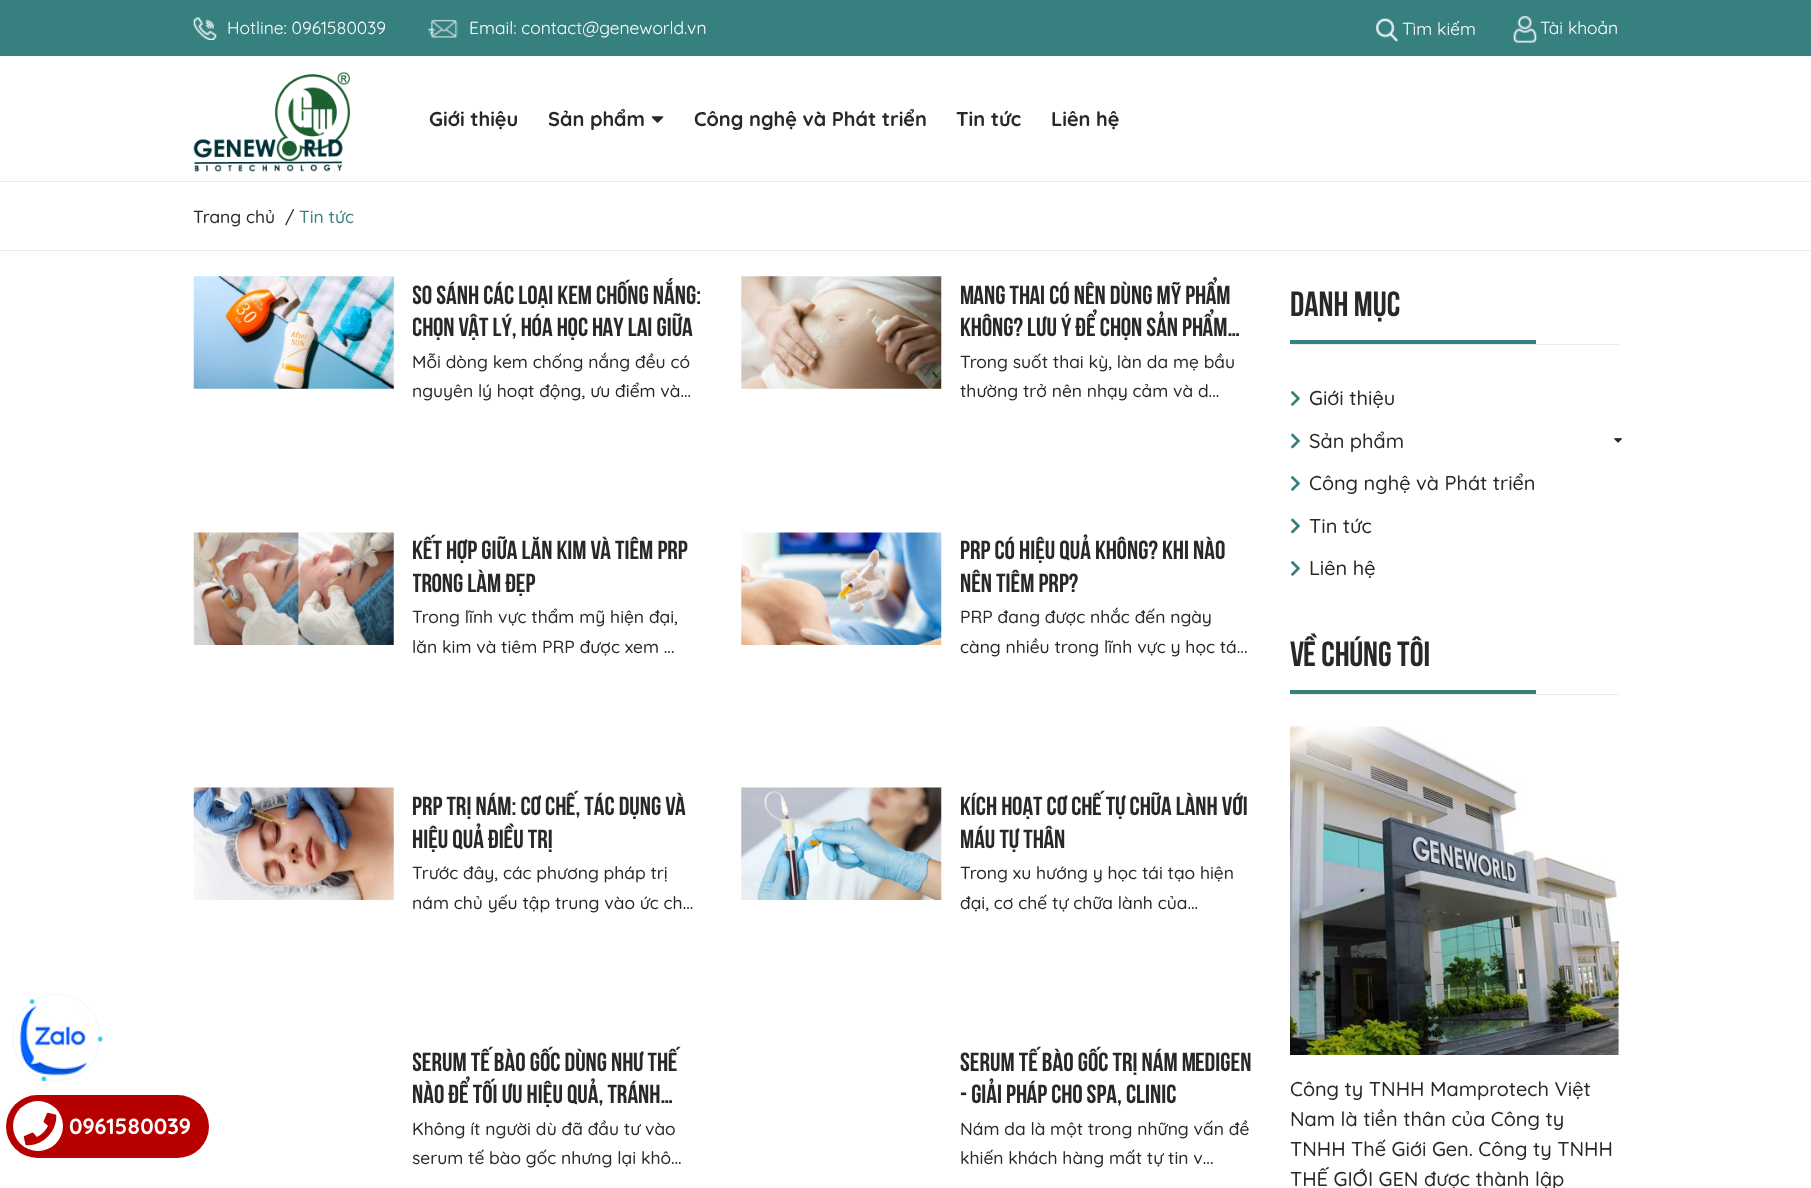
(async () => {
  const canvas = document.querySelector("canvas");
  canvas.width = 1811;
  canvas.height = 1188;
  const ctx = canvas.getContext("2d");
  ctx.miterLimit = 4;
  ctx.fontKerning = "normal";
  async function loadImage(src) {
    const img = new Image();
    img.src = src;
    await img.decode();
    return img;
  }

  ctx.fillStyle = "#ffffff";
  ctx.fillRect(0, 0, 1811, 1188);
  ctx.fillStyle = "#378080";
  ctx.fillRect(0, 0, 1811, 56);
  ctx.drawImage(await loadImage("img/1.png"), 193, 17, 24, 23);
  ctx.drawImage(await loadImage("img/2.png"), 427, 19, 31, 19);
  ctx.drawImage(await loadImage("img/3.png"), 1376, 18, 22, 24);
  ctx.drawImage(await loadImage("img/4.png"), 1513, 16, 24, 27);
  ctx.drawImage(await loadImage("img/5.png"), 193, 72, 157, 100);
  ctx.drawImage(await loadImage("img/6.png"), 651, 116, 13, 7);
  ctx.drawImage(await loadImage("img/7.png"), 12, 993, 91, 89);
  ctx.drawImage(await loadImage("img/8.png"), 19, 1005, 72, 71);
  ctx.fillStyle = "#ebebeb";
  ctx.fillRect(0, 181, 1811, 1);
  ctx.fillRect(0, 250, 1811, 1);
  ctx.drawImage(await loadImage("img/9.png"), 193, 276, 201, 113);
  ctx.drawImage(await loadImage("img/10.png"), 741, 276, 201, 113);
  ctx.drawImage(await loadImage("img/11.png"), 193, 532, 201, 113);
  ctx.drawImage(await loadImage("img/12.png"), 741, 532, 201, 113);
  ctx.drawImage(await loadImage("img/13.png"), 193, 787, 201, 113);
  ctx.drawImage(await loadImage("img/14.png"), 741, 787, 201, 113);
  ctx.fillRect(1290, 344, 329, 1);
  ctx.fillStyle = "#378080";
  ctx.fillRect(1290, 340, 246, 4);
  ctx.drawImage(await loadImage("img/15.png"), 1291, 391, 9, 15);
  ctx.drawImage(await loadImage("img/16.png"), 1291, 433, 9, 16);
  ctx.drawImage(await loadImage("img/17.png"), 1614, 438, 8, 5);
  ctx.drawImage(await loadImage("img/15.png"), 1291, 476, 9, 15);
  ctx.drawImage(await loadImage("img/16.png"), 1291, 518, 9, 16);
  ctx.drawImage(await loadImage("img/15.png"), 1291, 561, 9, 15);
  ctx.fillStyle = "#ebebeb";
  ctx.fillRect(1290, 694, 329, 1);
  ctx.fillStyle = "#378080";
  ctx.fillRect(1290, 690, 246, 4);
  ctx.drawImage(await loadImage("img/18.png"), 1290, 726, 329, 329);
  ctx.fillStyle = "#b70100";
  ctx.beginPath();
  ctx.roundRect(6, 1095, 203, 63, 31.5);
  ctx.fill();
  ctx.fillStyle = "#ffffff";
  ctx.beginPath();
  ctx.arc(38, 1126, 25, 0, Math.PI * 2);
  ctx.fill();
  ctx.drawImage(await loadImage("img/19.png"), 23, 1112, 34, 34);
  ctx.font = "17.5px Quicksand";
  for (const [text, x, y] of [
    ["Hotline: 0961580039", 227, 34],
    ["Email: contact@geneworld.vn", 469, 34],
    ["Tìm kiếm", 1402, 35],
    ["Tài khoản", 1540, 34],
  ]) {
    ctx.fillText(text, x, y);
  }
  ctx.font = "bold 20px Quicksand";
  ctx.fillStyle = "#282828";
  for (const [text, x, y] of [
    ["Giới thiệu", 429, 126],
    ["Sản phẩm", 548, 126],
    ["Công nghệ và Phát triển", 694, 126],
    ["Tin tức", 956, 126],
    ["Liên hệ", 1051, 126],
  ]) {
    ctx.fillText(text, x, y);
  }
  ctx.font = "500 17.5px Quicksand";
  ctx.fillText("Trang chủ", 193, 223);
  ctx.fillText("/", 285, 223);
  ctx.fillStyle = "#378080";
  ctx.fillText("Tin tức", 299, 223);
  ctx.save();
  ctx.beginPath();
  ctx.rect(413, 276, 291, 65);
  ctx.clip();
  ctx.font = "26.25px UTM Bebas";
  ctx.fillStyle = "#282828";
  ctx.fillText("So sánh các loại kem chống nắng:", 412, 304);
  ctx.fillText("Chọn vật lý, hóa học hay lai giữa", 412, 336);
  ctx.restore();
  ctx.fillStyle = "#282828";
  ctx.fillText("Mỗi dòng kem chống nắng đều có", 412, 368);
  ctx.fillText("nguyên lý hoạt động, ưu điểm và...", 412, 397);
  ctx.font = "26.25px UTM Bebas";
  ctx.fillText("Mang thai có nên dùng mỹ phẩm", 960, 304);
  ctx.fillText("không? Lưu ý để chọn sản phẩm…", 960, 336);
  ctx.font = "500 17.5px Quicksand";
  ctx.fillText("Trong suốt thai kỳ, làn da mẹ bầu", 960, 368);
  ctx.fillText("thường trở nên nhạy cảm và d...", 960, 397);
  ctx.save();
  ctx.beginPath();
  ctx.rect(413, 533, 291, 65);
  ctx.clip();
  ctx.font = "26.25px UTM Bebas";
  ctx.fillText("Kết hợp giữa lăn kim và tiêm PRP", 412, 559);
  ctx.fillText("trong làm đẹp", 412, 592);
  ctx.restore();
  ctx.fillText("Trong lĩnh vực thẩm mỹ hiện đại,", 412, 623);
  ctx.fillText("lăn kim và tiêm PRP được xem ...", 412, 653);
  ctx.font = "26.25px UTM Bebas";
  ctx.fillText("PRP có hiệu quả không? Khi nào", 960, 559);
  ctx.fillText("nên tiêm PRP?", 960, 592);
  ctx.font = "500 17.5px Quicksand";
  ctx.fillText("PRP đang được nhắc đến ngày", 960, 623);
  ctx.fillText("càng nhiều trong lĩnh vực y học tá...", 960, 653);
  ctx.save();
  ctx.beginPath();
  ctx.rect(413, 788, 291, 65);
  ctx.clip();
  ctx.font = "26.25px UTM Bebas";
  ctx.fillText("PRP trị nám: Cơ chế, tác dụng và", 412, 815);
  ctx.fillText("hiệu quả điều trị", 412, 848);
  ctx.restore();
  ctx.fillText("Trước đây, các phương pháp trị", 412, 879);
  ctx.fillText("nám chủ yếu tập trung vào ức ch...", 412, 909);
  ctx.font = "26.25px UTM Bebas";
  ctx.fillText("Kích hoạt cơ chế tự chữa lành với", 960, 815);
  ctx.fillText("máu tự thân", 960, 848);
  ctx.font = "500 17.5px Quicksand";
  ctx.fillText("Trong xu hướng y học tái tạo hiện", 960, 879);
  ctx.fillText("đại, cơ chế tự chữa lành của...", 960, 909);
  ctx.save();
  ctx.beginPath();
  ctx.rect(413, 1044, 291, 65);
  ctx.clip();
  ctx.font = "26.25px UTM Bebas";
  ctx.fillText("Serum tế bào gốc dùng như thế", 412, 1071);
  ctx.fillText("nào để tối ưu hiệu quả, tránh…", 412, 1103);
  ctx.restore();
  ctx.fillText("Không ít người dù đã đầu tư vào", 412, 1135);
  ctx.fillText("serum tế bào gốc nhưng lại khô...", 412, 1164);
  ctx.font = "26.25px UTM Bebas";
  ctx.fillText("Serum tế bào gốc trị nám Medigen", 960, 1071);
  ctx.fillText("- Giải pháp cho Spa, Clinic", 960, 1103);
  ctx.font = "500 17.5px Quicksand";
  ctx.fillText("Nám da là một trong những vấn đề", 960, 1135);
  ctx.fillText("khiến khách hàng mất tự tin v...", 960, 1164);
  ctx.font = "35px UTM Bebas";
  ctx.fillText("Danh mục", 1290, 316);
  ctx.font = "500 20px Quicksand";
  for (const [text, x, y] of [
    ["Giới thiệu", 1309, 405],
    ["Sản phẩm", 1309, 448],
    ["Công nghệ và Phát triển", 1309, 490],
    ["Tin tức", 1309, 533],
    ["Liên hệ", 1309, 575],
  ]) {
    ctx.fillText(text, x, y);
  }
  ctx.font = "35px UTM Bebas";
  ctx.fillText("Về chúng tôi", 1290, 666);
  ctx.font = "500 20px Quicksand";
  for (const [text, x, y] of [
    ["Công ty TNHH Mamprotech Việt", 1290, 1096],
    ["Nam là tiền thân của Công ty", 1290, 1126],
    ["TNHH Thế Giới Gen. Công ty TNHH", 1290, 1156],
    ["THẾ GIỚI GEN được thành lập", 1290, 1186],
  ]) {
    ctx.fillText(text, x, y);
  }
  ctx.font = "bold 22px Quicksand";
  ctx.fillStyle = "#ffffff";
  ctx.fillText("0961580039", 69, 1134);
})();
